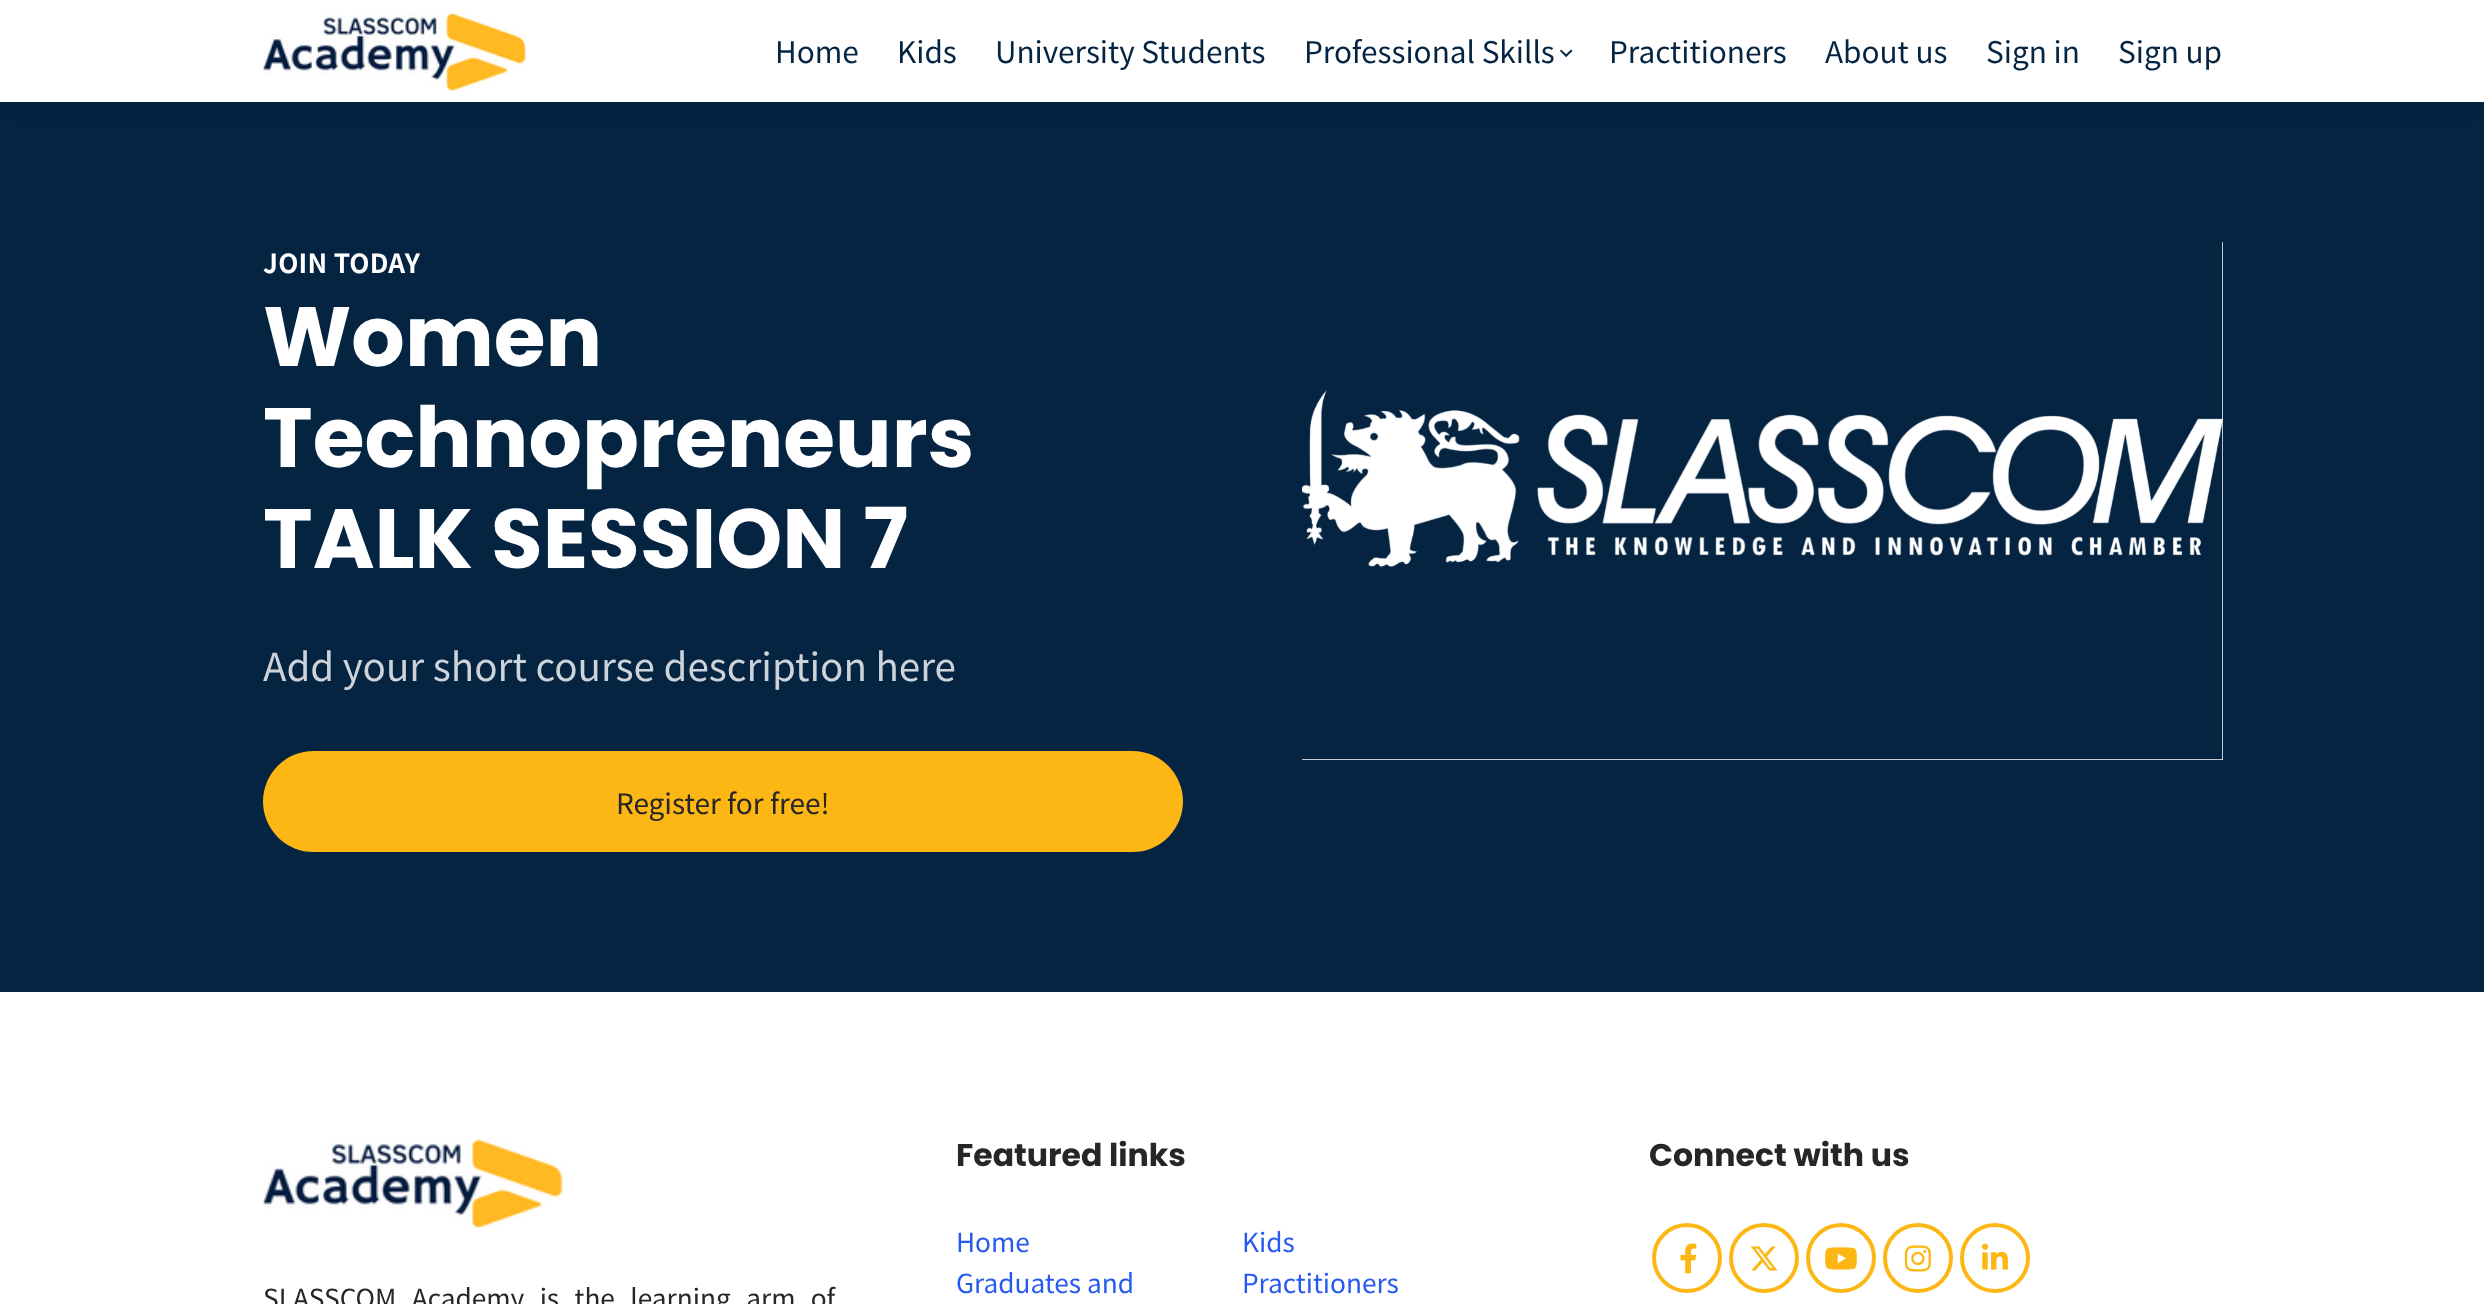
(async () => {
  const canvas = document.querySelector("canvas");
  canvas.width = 2484;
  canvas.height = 1304;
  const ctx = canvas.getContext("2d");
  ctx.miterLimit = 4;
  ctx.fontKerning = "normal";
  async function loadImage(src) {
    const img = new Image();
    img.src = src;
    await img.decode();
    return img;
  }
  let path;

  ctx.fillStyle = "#ffffff";
  ctx.fillRect(0, 0, 2484, 1304);
  ctx.fillStyle = "#042442";
  ctx.fillRect(0, 102, 2484, 890);
  ctx.fillStyle = "rgba(0, 0, 0, 0.05)";
  ctx.filter = "blur(13px)";
  ctx.beginPath();
  ctx.rect(0, 0, 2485, 102);
  ctx.fill();
  ctx.filter = "none";
  ctx.fillStyle = "#ffffff";
  ctx.fillRect(0, 0, 2484, 102);
  ctx.drawImage(await loadImage("img/1.png"), 262, 12, 264, 80);
  ctx.fillStyle = "#042442";
  path = new Path2D("M1572.5 51L1566 57L1565 55.5L1571 49.5Z");
  ctx.fill(path);
  path = new Path2D("M1567.5 55.5L1566 57L1560 51L1561 49.5Z");
  ctx.fill(path);
  ctx.fillStyle = "#fcb714";
  ctx.beginPath();
  ctx.roundRect(263, 751, 920, 101, 50.5);
  ctx.fill();
  ctx.fillStyle = "#ffffff";
  ctx.fillRect(1302, 242, 921, 518);
  ctx.drawImage(await loadImage("img/2.png"), 1302, 242, 921, 518);
  ctx.beginPath();
  ctx.arc(1687, 1258, 33, 0, Math.PI * 2);
  ctx.strokeStyle = "#fcb714";
  ctx.lineWidth = 4;
  ctx.stroke();
  ctx.drawImage(await loadImage("img/3.png"), 1680, 1243, 17, 31);
  ctx.beginPath();
  ctx.arc(1764, 1258, 33, 0, Math.PI * 2);
  ctx.stroke();
  ctx.drawImage(await loadImage("img/4.png"), 1750, 1246, 28, 25);
  ctx.beginPath();
  ctx.arc(1841, 1258, 33, 0, Math.PI * 2);
  ctx.stroke();
  ctx.drawImage(await loadImage("img/5.png"), 1825, 1247, 32, 23);
  ctx.beginPath();
  ctx.arc(1918, 1258, 33, 0, Math.PI * 2);
  ctx.stroke();
  ctx.drawImage(await loadImage("img/6.png"), 1904, 1245, 27, 27);
  ctx.beginPath();
  ctx.arc(1995, 1258, 33, 0, Math.PI * 2);
  ctx.stroke();
  ctx.drawImage(await loadImage("img/7.png"), 1981, 1243, 27, 27);
  ctx.drawImage(await loadImage("img/8.png"), 262, 1138, 301, 91);
  ctx.font = "29.75px Noto Sans JP";
  ctx.fillStyle = "#042442";
  for (const [text, x, y] of [
    ["Home", 775, 63],
    ["Kids", 897, 63],
    ["University Students", 995, 63],
    ["Professional Skills", 1304, 63],
    ["Practitioners", 1609, 63],
    ["About us", 1825, 63],
    ["Sign in", 1986, 63],
    ["Sign up", 2118, 63],
  ]) {
    ctx.fillText(text, x, y);
  }
  ctx.letterSpacing = "0.25px";
  ctx.font = "bold 26.25px Noto Sans JP";
  ctx.fillStyle = "#ffffff";
  ctx.fillText("JOIN TODAY", 263, 273);
  ctx.letterSpacing = "0px";
  ctx.font = "bold 84px Poppins";
  for (const [text, x, y] of [
    ["Women", 263, 366],
    ["Technopreneurs", 263, 467],
    ["TALK SESSION 7", 263, 568],
  ]) {
    ctx.fillText(text, x, y);
  }
  ctx.font = "38.5px Noto Sans JP";
  ctx.fillStyle = "#cdd3d9";
  ctx.fillText("Add your short course description here", 263, 681);
  ctx.font = "28px Noto Sans JP";
  ctx.fillStyle = "#262626";
  ctx.fillText("Register for free!", 616, 814);
  ctx.font = "bold 31.5px Poppins";
  ctx.fillText("Featured links", 956, 1166);
  ctx.font = "26.25px Noto Sans JP";
  ctx.fillStyle = "#2659f0";
  for (const [text, x, y] of [
    ["Home", 956, 1252],
    ["Kids", 1242, 1252],
    ["Graduates and", 956, 1293],
    ["Practitioners", 1242, 1293],
  ]) {
    ctx.fillText(text, x, y);
  }
  ctx.font = "bold 31.5px Poppins";
  ctx.fillStyle = "#262626";
  ctx.fillText("Connect with us", 1649, 1166);
  ctx.wordSpacing = "9.5px";
  ctx.font = "26.25px Noto Sans JP";
  ctx.fillText("SLASSCOM Academy is the learning arm of", 263, 1308);
})();
